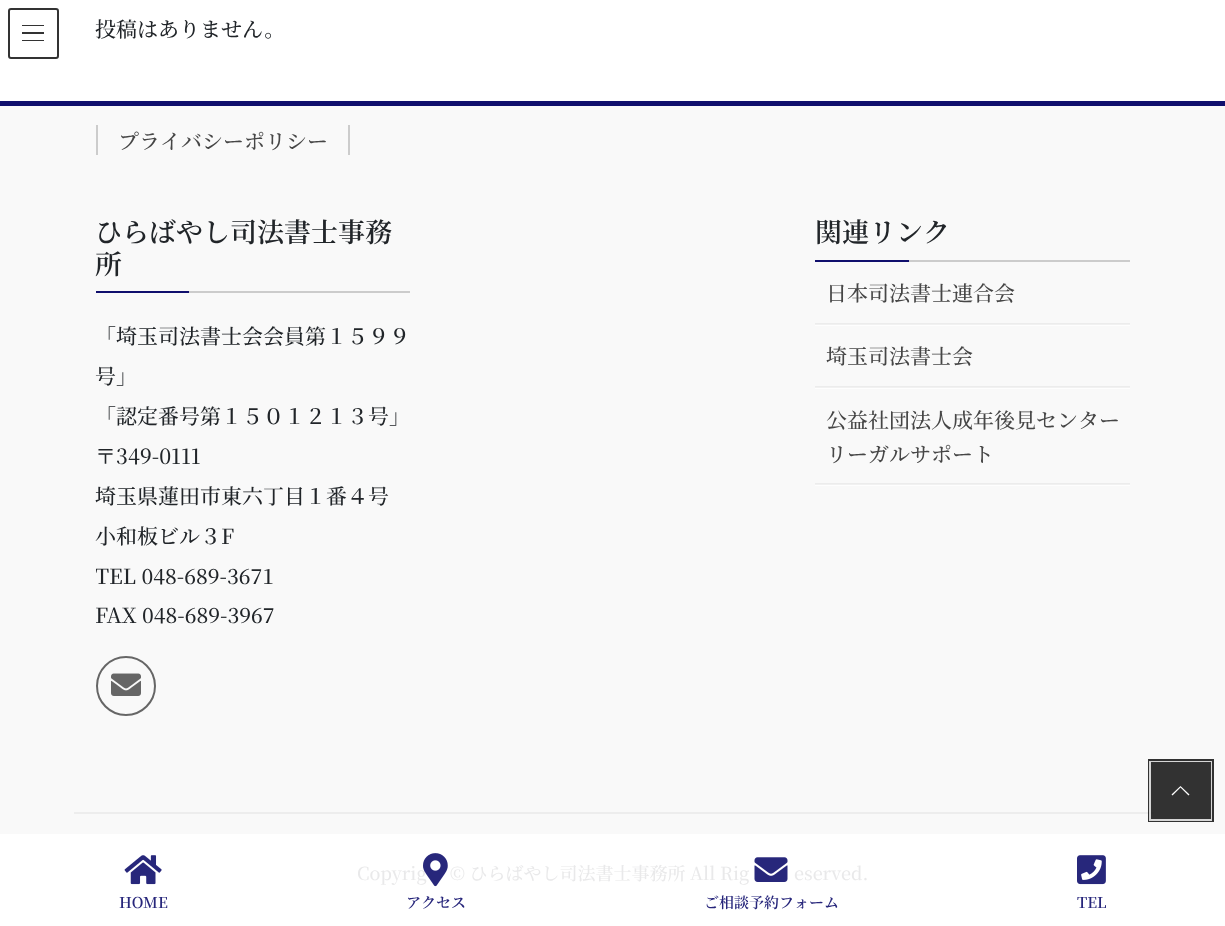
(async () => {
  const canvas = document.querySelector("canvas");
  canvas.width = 1225;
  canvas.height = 926;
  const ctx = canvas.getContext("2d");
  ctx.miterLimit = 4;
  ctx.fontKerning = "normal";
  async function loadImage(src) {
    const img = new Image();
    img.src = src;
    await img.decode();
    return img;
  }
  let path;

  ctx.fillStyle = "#ffffff";
  ctx.fillRect(0, 0, 1225, 926);
  for (const [x, y, w, h, color] of [
    [22, 25, 22, 1, "#333333"],
    [22, 32, 22, 2, "#333333"],
    [22, 40, 22, 1, "#333333"],
  ]) {
    ctx.fillStyle = color;
    ctx.fillRect(x, y, w, h);
  }
  ctx.beginPath();
  ctx.roundRect(9, 9, 49, 49, 2);
  ctx.strokeStyle = "#333333";
  ctx.lineWidth = 2;
  ctx.stroke();
  for (const [x, y, w, h, color] of [
    [0, 106, 1225, 728, "#f9f9f9"],
    [0, 101, 1225, 5, "#100f6d"],
    [348, 125, 2, 30, "#cccccc"],
    [96, 125, 2, 30, "#cccccc"],
    [189, 291, 221, 2, "#cccccc"],
    [96, 291, 93, 2, "#100f6d"],
  ]) {
    ctx.fillStyle = color;
    ctx.fillRect(x, y, w, h);
  }
  ctx.beginPath();
  ctx.arc(126, 686, 29, 0, Math.PI * 2);
  ctx.strokeStyle = "#666666";
  ctx.stroke();
  ctx.drawImage(await loadImage("img/1.png"), 111, 673, 30, 23);
  ctx.fillStyle = "#cccccc";
  ctx.fillRect(909, 260, 221, 2);
  ctx.fillStyle = "#100f6d";
  ctx.fillRect(815, 260, 94, 2);
  ctx.fillStyle = "#fefefe";
  path = new Path2D("M815 324V326H1130V263V324Z");
  ctx.fill(path);
  ctx.fillStyle = "rgba(0, 0, 0, 0.05)";
  ctx.fillRect(815, 323, 315, 2);
  ctx.fillStyle = "#fefefe";
  path = new Path2D("M815 387V389H1130V326V387Z");
  ctx.fill(path);
  ctx.fillStyle = "rgba(0, 0, 0, 0.05)";
  ctx.fillRect(815, 386, 315, 2);
  ctx.fillStyle = "#fefefe";
  path = new Path2D("M815 484V486H1130V389V484Z");
  ctx.fill(path);
  ctx.fillStyle = "rgba(0, 0, 0, 0.05)";
  ctx.fillRect(815, 483, 315, 2);
  ctx.fillStyle = "#ededed";
  ctx.fillRect(74, 812, 1080, 2);
  ctx.strokeStyle = "rgba(0, 0, 0, 0.8)";
  ctx.lineWidth = 3;
  ctx.strokeRect(1149.5, 760.5, 63, 60);
  ctx.strokeStyle = "rgba(255, 255, 255, 0.8)";
  ctx.lineWidth = 2;
  ctx.strokeRect(1150, 762, 61, 58);
  ctx.fillStyle = "rgba(0, 0, 0, 0.8)";
  ctx.fillRect(1151, 762, 60, 57);
  ctx.fillStyle = "#ffffff";
  path = new Path2D("M1189.5 794.5L1188.5 795.5L1180.5 787.5L1172.5 795.5L1171.5 794.5L1180.5 786Z");
  ctx.fill(path);
  ctx.drawImage(await loadImage("img/2.png"), 124, 855, 38, 30);
  ctx.drawImage(await loadImage("img/4.png"), 754, 857, 34, 25);
  ctx.drawImage(await loadImage("img/5.png"), 1077, 855, 29, 30);
  ctx.font = "500 21px Noto Serif JP";
  ctx.fillStyle = "#212529";
  ctx.fillText("投稿はありません。", 95, 37);
  ctx.fillStyle = "#464646";
  ctx.fillText("プライバシーポリシー", 118, 149);
  ctx.font = "600 27px Noto Serif JP";
  ctx.fillStyle = "#212529";
  ctx.fillText("ひらばやし司法書士事務", 95, 242);
  ctx.fillText("所", 95, 274);
  ctx.font = "500 21px Noto Serif JP";
  for (const [text, x, y] of [
    ["「埼玉司法書士会会員第１５９９", 95, 344],
    ["号」", 95, 384],
    ["「認定番号第１５０１２１３号」", 95, 424],
    ["〒349-0111", 95, 464],
    ["埼玉県蓮田市東六丁目１番４号", 95, 504],
    ["小和板ビル３F", 95, 544],
  ]) {
    ctx.fillText(text, x, y);
  }
  ctx.save();
  ctx.beginPath();
  ctx.rect(96, 315, 314, 417);
  ctx.clip();
  ctx.fillText("TEL 048-689-3671", 95, 584);
  ctx.restore();
  ctx.fillText("FAX 048-689-3967", 95, 623);
  ctx.font = "600 27px Noto Serif JP";
  ctx.fillText("関連リンク", 815, 242);
  ctx.font = "500 21px Noto Serif JP";
  ctx.fillStyle = "#464646";
  for (const [text, x, y] of [
    ["日本司法書士連合会", 826, 301],
    ["埼玉司法書士会", 826, 364],
    ["公益社団法人成年後見センター", 826, 428],
    ["リーガルサポート", 826, 462],
  ]) {
    ctx.fillText(text, x, y);
  }
  ctx.font = "500 18px Noto Serif JP";
  ctx.fillStyle = "#e9e9ea";
  for (const [text, x, y] of [
    ["Copyrig", 357, 880],
    ["© ひらばやし司法書士事務所 All Rig", 450, 880],
    ["eserved.", 794, 880],
  ]) {
    ctx.fillText(text, x, y);
  }
  ctx.font = "600 15px Noto Serif JP";
  ctx.fillStyle = "#27267b";
  ctx.fillText("HOME", 119, 908);
  ctx.drawImage(await loadImage("img/3.png"), 423, 853, 25, 34);
  for (const [text, x, y] of [
    ["アクセス", 406, 908],
    ["ご相談予約フォーム", 704, 908],
    ["TEL", 1077, 908],
  ]) {
    ctx.fillText(text, x, y);
  }
})();
